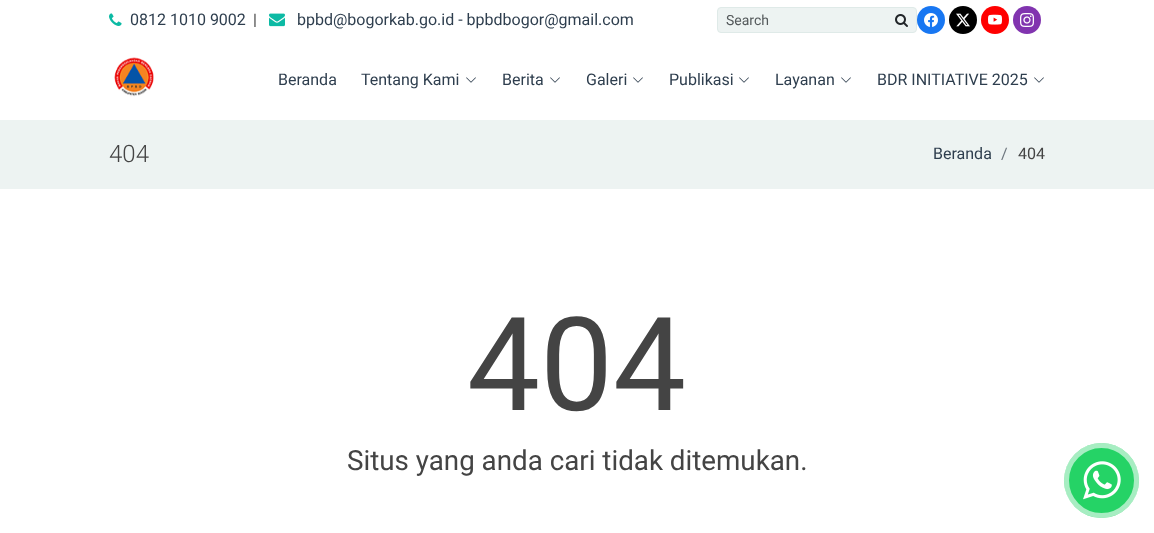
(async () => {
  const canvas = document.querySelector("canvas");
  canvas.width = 1154;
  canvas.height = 533;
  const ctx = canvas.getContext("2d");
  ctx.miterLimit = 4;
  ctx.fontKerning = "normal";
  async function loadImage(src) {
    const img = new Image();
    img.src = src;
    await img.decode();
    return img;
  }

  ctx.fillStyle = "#ffffff";
  ctx.fillRect(0, 0, 1154, 533);
  ctx.save();
  ctx.beginPath();
  ctx.rect(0, 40, 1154, 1);
  ctx.clip();
  ctx.fillStyle = "rgba(0, 0, 0, 0.4)";
  ctx.filter = "blur(0.5px)";
  ctx.beginPath();
  ctx.rect(0, 0, 1154, 40);
  ctx.fill();
  ctx.filter = "none";
  ctx.restore();
  ctx.drawImage(await loadImage("img/1.png"), 109, 13, 13, 13);
  ctx.drawImage(await loadImage("img/2.png"), 269, 13, 16, 14);
  ctx.fillStyle = "#edf3f2";
  ctx.beginPath();
  ctx.roundRect(717.5, 7.5, 199, 25, 3.5);
  ctx.fill();
  ctx.strokeStyle = "#dfeae8";
  ctx.stroke();
  ctx.drawImage(await loadImage("img/3.png"), 895, 14, 13, 13);
  ctx.fillStyle = "#1877f2";
  ctx.beginPath();
  ctx.arc(931, 20, 14, 0, Math.PI * 2);
  ctx.fill();
  ctx.drawImage(await loadImage("img/4.png"), 924, 13, 14, 14);
  ctx.fillStyle = "#000000";
  ctx.beginPath();
  ctx.arc(963, 20, 14, 0, Math.PI * 2);
  ctx.fill();
  ctx.drawImage(await loadImage("img/5.png"), 956, 13, 14, 14);
  ctx.fillStyle = "#ff0000";
  ctx.beginPath();
  ctx.arc(995, 20, 14, 0, Math.PI * 2);
  ctx.fill();
  ctx.drawImage(await loadImage("img/6.png"), 988, 14, 14, 11);
  ctx.fillStyle = "#8134af";
  ctx.beginPath();
  ctx.arc(1027, 20, 14, 0, Math.PI * 2);
  ctx.fill();
  ctx.drawImage(await loadImage("img/7.png"), 1020, 13, 14, 14);
  ctx.drawImage(await loadImage("img/8.png"), 114, 57, 40, 40);
  ctx.drawImage(await loadImage("img/9.png"), 466, 77, 10, 6);
  ctx.drawImage(await loadImage("img/9.png"), 550, 77, 10, 6);
  ctx.drawImage(await loadImage("img/9.png"), 633, 77, 10, 6);
  ctx.drawImage(await loadImage("img/9.png"), 739, 77, 10, 6);
  ctx.drawImage(await loadImage("img/9.png"), 841, 77, 10, 6);
  ctx.drawImage(await loadImage("img/9.png"), 1034, 77, 10, 6);
  ctx.fillStyle = "#edf3f2";
  ctx.fillRect(0, 120, 1154, 69);
  ctx.fillStyle = "#25d366";
  ctx.beginPath();
  ctx.arc(1101.5, 480.5, 37.5, 0, Math.PI * 2);
  ctx.fill();
  ctx.beginPath();
  ctx.arc(1101.5, 480.5, 35, 0, Math.PI * 2);
  ctx.strokeStyle = "rgba(255, 255, 255, 0.6)";
  ctx.lineWidth = 5;
  ctx.stroke();
  ctx.drawImage(await loadImage("img/10.png"), 1083, 461, 38, 39);
  ctx.font = "16px Roboto";
  ctx.fillStyle = "#2e3e4e";
  ctx.fillText("0812 1010 9002", 130, 25);
  ctx.fillStyle = "#444444";
  ctx.fillText("|", 253, 25);
  ctx.fillStyle = "#2e3e4e";
  ctx.fillText("bpbd@bogorkab.go.id - bpbdbogor@gmail.com", 297, 25);
  ctx.font = "14px Roboto";
  ctx.fillStyle = "#54595b";
  ctx.fillText("Search", 726, 25);
  ctx.font = "16px Roboto";
  ctx.fillStyle = "#2e3e4e";
  for (const [text, x, y] of [
    ["Beranda", 278, 85],
    ["Tentang Kami", 361, 85],
    ["Berita", 502, 85],
    ["Galeri", 586, 85],
    ["Publikasi", 669, 85],
    ["Layanan", 775, 85],
    ["BDR INITIATIVE 2025", 877, 85],
  ]) {
    ctx.fillText(text, x, y);
  }
  ctx.font = "300 24px Roboto";
  ctx.fillStyle = "#444444";
  ctx.fillText("404", 109, 162);
  ctx.font = "16px Roboto";
  ctx.fillStyle = "#2e3e4e";
  ctx.fillText("Beranda", 933, 159);
  ctx.fillStyle = "#6c757d";
  ctx.fillText("/", 1001, 159);
  ctx.fillStyle = "#444444";
  ctx.fillText("404", 1018, 159);
  ctx.font = "130px Roboto";
  ctx.fillText("404", 467, 410);
  ctx.font = "27.75px Roboto";
  ctx.fillText("Situs yang anda cari tidak ditemukan.", 347, 470);
})();
